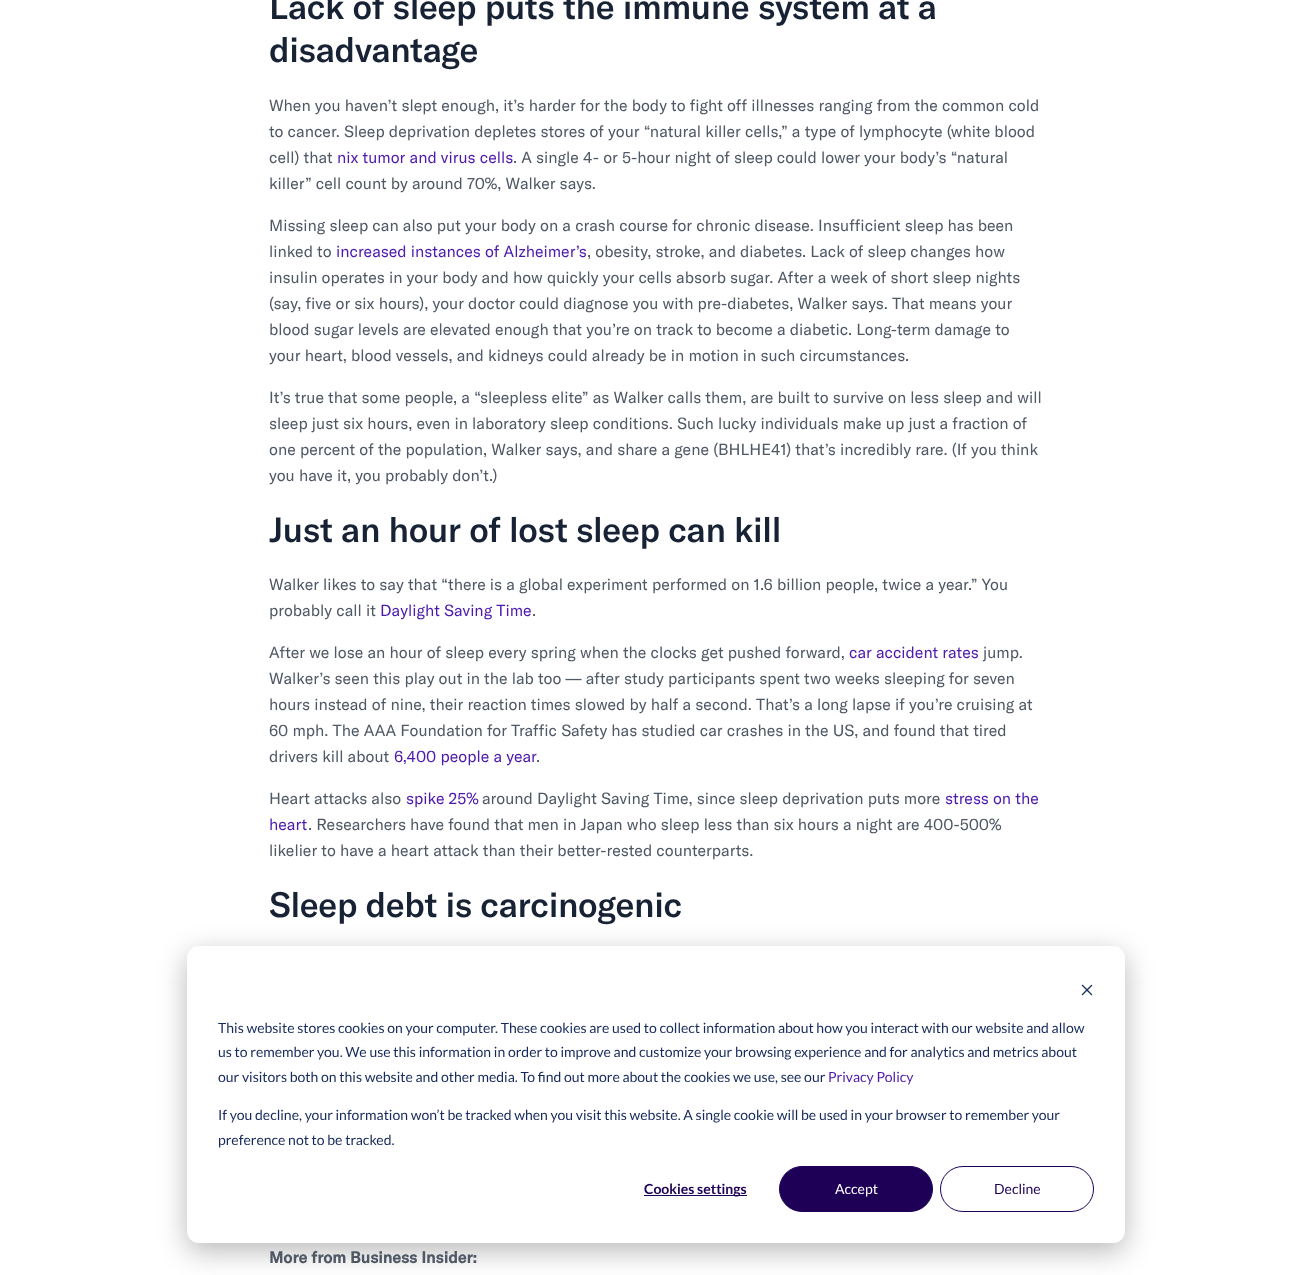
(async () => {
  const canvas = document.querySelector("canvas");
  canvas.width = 1312;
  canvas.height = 1275;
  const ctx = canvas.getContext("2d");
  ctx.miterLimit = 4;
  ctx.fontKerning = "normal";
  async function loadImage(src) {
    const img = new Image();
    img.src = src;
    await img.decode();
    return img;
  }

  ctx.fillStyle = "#ffffff";
  ctx.fillRect(0, 0, 1312, 1275);
  ctx.fillStyle = "rgba(0, 0, 0, 0.28)";
  ctx.filter = "blur(14px)";
  ctx.beginPath();
  ctx.roundRect(187, 954, 938, 297, 12);
  ctx.fill();
  ctx.filter = "none";
  ctx.fillStyle = "#ffffff";
  ctx.beginPath();
  ctx.roundRect(187, 946, 938, 297, 12);
  ctx.fill();
  ctx.drawImage(await loadImage("img/1.png"), 1081, 984, 12, 12);
  ctx.fillStyle = "#1e0056";
  ctx.fillRect(644, 1195, 103, 1);
  ctx.beginPath();
  ctx.roundRect(779.5, 1166.5, 153, 45, 22.5);
  ctx.fill();
  ctx.strokeStyle = "#1e0056";
  ctx.stroke();
  ctx.beginPath();
  ctx.roundRect(940.5, 1166.5, 153, 45, 22.5);
  ctx.stroke();
  ctx.letterSpacing = "-0.35px";
  ctx.font = "500 34.6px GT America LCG";
  ctx.fillStyle = "#172235";
  ctx.fillText("Lack of sleep puts the immune system at a", 269, 19);
  ctx.fillText("disadvantage", 269, 62);
  ctx.letterSpacing = "0px";
  ctx.font = "16px GT America LCG";
  ctx.fillStyle = "#4f5865";
  for (const [text, x, y] of [
    ["When you haven’t slept enough, it’s harder for the body to fight off illnesses ranging from the common cold", 269, 111],
    ["to cancer. Sleep deprivation depletes stores of your “natural killer cells,” a type of lymphocyte (white blood", 269, 137],
    ["cell) that", 269, 163],
  ]) {
    ctx.fillText(text, x, y);
  }
  ctx.fillStyle = "#4d1aad";
  ctx.fillText("nix tumor and virus cells", 337, 163);
  ctx.fillStyle = "#4f5865";
  for (const [text, x, y] of [
    [". A single 4- or 5-hour night of sleep could lower your body’s “natural", 513, 163],
    ["killer” cell count by around 70%, Walker says.", 269, 189],
    ["Missing sleep can also put your body on a crash course for chronic disease. Insufficient sleep has been", 269, 231],
    ["linked to", 269, 257],
  ]) {
    ctx.fillText(text, x, y);
  }
  ctx.fillStyle = "#4d1aad";
  ctx.fillText("increased instances of Alzheimer’s", 336, 257);
  ctx.fillStyle = "#4f5865";
  for (const [text, x, y] of [
    [", obesity, stroke, and diabetes. Lack of sleep changes how", 587, 257],
    ["insulin operates in your body and how quickly your cells absorb sugar. After a week of short sleep nights", 269, 283],
    ["(say, five or six hours), your doctor could diagnose you with pre-diabetes, Walker says. That means your", 269, 309],
    ["blood sugar levels are elevated enough that you’re on track to become a diabetic. Long-term damage to", 269, 335],
    ["your heart, blood vessels, and kidneys could already be in motion in such circumstances.", 269, 361],
    ["It’s true that some people, a “sleepless elite” as Walker calls them, are built to survive on less sleep and will", 269, 403],
    ["sleep just six hours, even in laboratory sleep conditions. Such lucky individuals make up just a fraction of", 269, 429],
    ["one percent of the population, Walker says, and share a gene (BHLHE41) that’s incredibly rare. (If you think", 269, 455],
    ["you have it, you probably don’t.)", 269, 481],
  ]) {
    ctx.fillText(text, x, y);
  }
  ctx.letterSpacing = "-0.35px";
  ctx.font = "500 34.6px GT America LCG";
  ctx.fillStyle = "#172235";
  ctx.fillText("Just an hour of lost sleep can kill", 269, 542);
  ctx.letterSpacing = "0px";
  ctx.font = "16px GT America LCG";
  ctx.fillStyle = "#4f5865";
  ctx.fillText("Walker likes to say that “there is a global experiment performed on 1.6 billion people, twice a year.” You", 269, 590);
  ctx.fillText("probably call it", 269, 616);
  ctx.fillStyle = "#4d1aad";
  ctx.fillText("Daylight Saving Time", 380, 616);
  ctx.fillStyle = "#4f5865";
  ctx.fillText(".", 532, 616);
  ctx.fillText("After we lose an hour of sleep every spring when the clocks get pushed forward,", 269, 658);
  ctx.fillStyle = "#4d1aad";
  ctx.fillText("car accident rates", 849, 658);
  ctx.fillStyle = "#4f5865";
  for (const [text, x, y] of [
    ["jump.", 983, 658],
    ["Walker’s seen this play out in the lab too — after study participants spent two weeks sleeping for seven", 269, 684],
    ["hours instead of nine, their reaction times slowed by half a second. That’s a long lapse if you’re cruising at", 269, 710],
    ["60 mph. The AAA Foundation for Traffic Safety has studied car crashes in the US, and found that tired", 269, 736],
    ["drivers kill about", 269, 762],
  ]) {
    ctx.fillText(text, x, y);
  }
  ctx.fillStyle = "#4d1aad";
  ctx.fillText("6,400 people a year", 394, 762);
  ctx.fillStyle = "#4f5865";
  ctx.fillText(".", 536, 762);
  ctx.fillText("Heart attacks also", 269, 804);
  ctx.fillStyle = "#4d1aad";
  ctx.fillText("spike 25%", 406, 804);
  ctx.fillStyle = "#4f5865";
  ctx.fillText("around Daylight Saving Time, since sleep deprivation puts more", 482, 804);
  ctx.fillStyle = "#4d1aad";
  ctx.fillText("stress on the", 945, 804);
  ctx.fillText("heart", 269, 830);
  ctx.fillStyle = "#4f5865";
  ctx.fillText(". Researchers have found that men in Japan who sleep less than six hours a night are 400-500%", 308, 830);
  ctx.fillText("likelier to have a heart attack than their better-rested counterparts.", 269, 856);
  ctx.letterSpacing = "-0.35px";
  ctx.font = "500 34.6px GT America LCG";
  ctx.fillStyle = "#172235";
  ctx.fillText("Sleep debt is carcinogenic", 269, 917);
  ctx.letterSpacing = "0px";
  ctx.font = "bold 16px GT America LCG";
  ctx.fillStyle = "#4f5865";
  ctx.fillText("More from Business Insider:", 269, 1263);
  ctx.font = "14px Lato";
  ctx.fillStyle = "#15295a";
  for (const [text, x, y] of [
    ["This website stores cookies on your computer. These cookies are used to collect information about how you interact with our website and allow", 218, 1033],
    ["us to remember you. We use this information in order to improve and customize your browsing experience and for analytics and metrics about", 218, 1057],
    ["our visitors both on this website and other media. To find out more about the cookies we use, see our", 218, 1082],
  ]) {
    ctx.fillText(text, x, y);
  }
  ctx.fillStyle = "#4d1aad";
  ctx.fillText("Privacy Policy", 828, 1082);
  ctx.fillStyle = "#15295a";
  ctx.fillText("If you decline, your information won’t be tracked when you visit this website. A single cookie will be used in your browser to remember your", 218, 1120);
  ctx.fillText("preference not to be tracked.", 218, 1145);
  ctx.font = "bold 14px Lato";
  ctx.fillStyle = "#1e0056";
  ctx.fillText("Cookies settings", 644, 1194);
  ctx.font = "14px Lato";
  ctx.fillStyle = "#ffffff";
  ctx.fillText("Accept", 835, 1194);
  ctx.fillStyle = "#1e0056";
  ctx.fillText("Decline", 994, 1194);
})();
